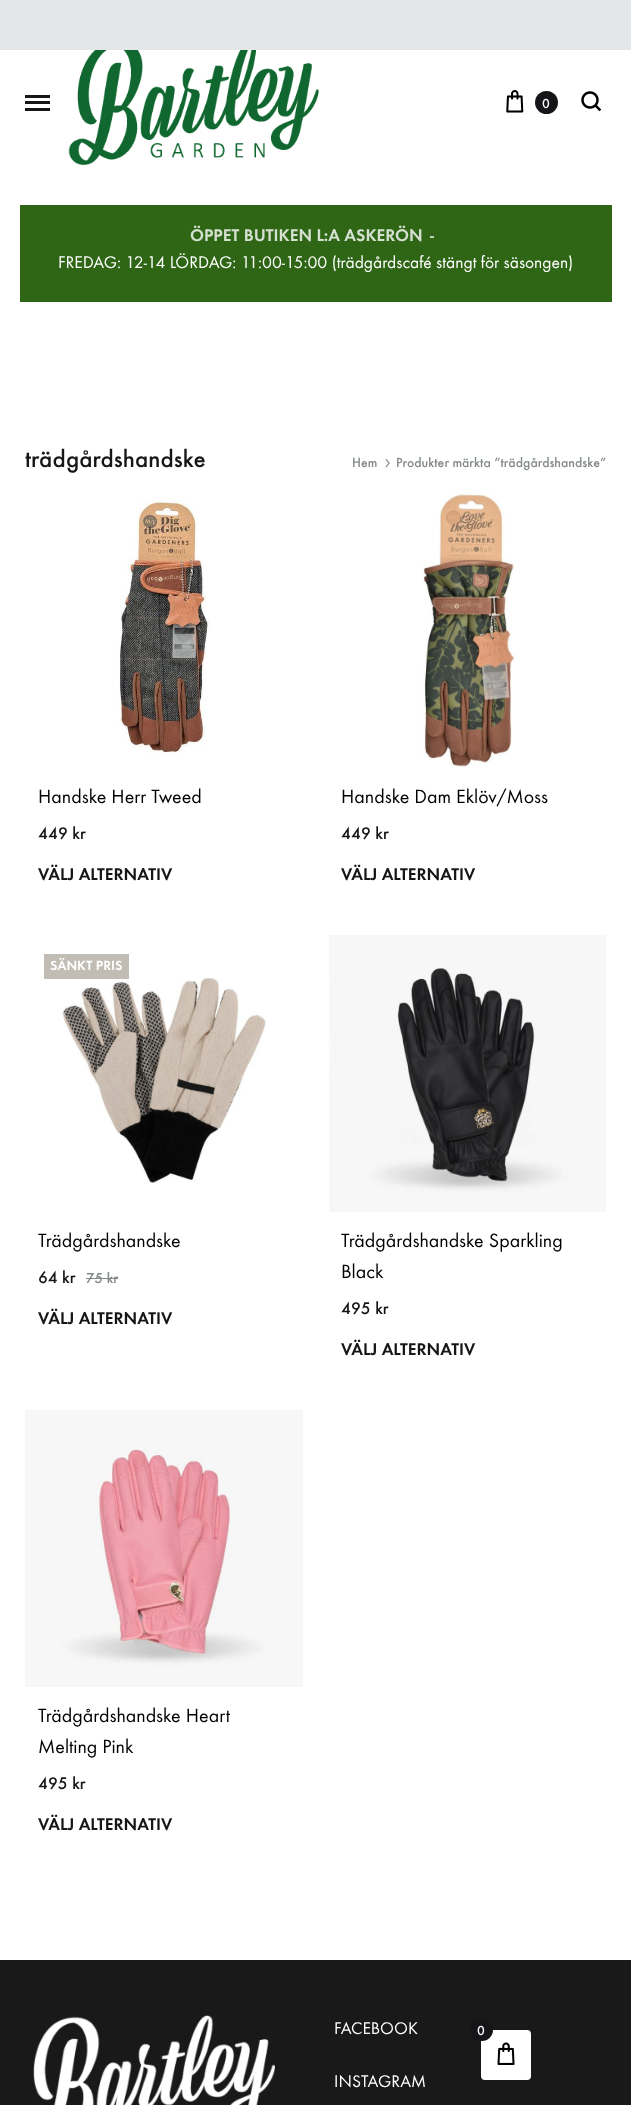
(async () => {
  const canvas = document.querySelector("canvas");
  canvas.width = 631;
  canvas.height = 2105;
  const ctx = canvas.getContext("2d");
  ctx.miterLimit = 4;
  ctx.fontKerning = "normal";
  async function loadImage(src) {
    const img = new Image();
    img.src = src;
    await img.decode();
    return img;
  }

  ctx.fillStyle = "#ffffff";
  ctx.fillRect(0, 0, 631, 2105);
  for (const [x, y, w, h, color] of [
    [0, 0, 631, 50, "#e3e7e8"],
    [25, 101, 25, 3, "#161619"],
    [25, 95, 25, 3, "#161619"],
    [25, 108, 25, 3, "#161619"],
  ]) {
    ctx.fillStyle = color;
    ctx.fillRect(x, y, w, h);
  }
  ctx.drawImage(await loadImage("img/1.png"), 68, 50, 251, 115);
  ctx.drawImage(await loadImage("img/2.png"), 506, 90, 18, 23);
  ctx.beginPath();
  ctx.arc(546.5, 102.5, 11.5, 0, Math.PI * 2);
  ctx.fill();
  ctx.drawImage(await loadImage("img/3.png"), 581, 91, 21, 21);
  ctx.fillStyle = "#2f6616";
  ctx.fillRect(20, 205, 592, 97);
  ctx.drawImage(await loadImage("img/4.png"), 385, 459, 5, 9);
  ctx.drawImage(await loadImage("img/5.png"), 119, 499, 91, 258);
  ctx.drawImage(await loadImage("img/6.png"), 421, 492, 97, 276);
  ctx.drawImage(await loadImage("img/7.png"), 61, 977, 206, 206);
  ctx.fillStyle = "#c1bcb4";
  ctx.fillRect(44, 954, 85, 25);
  ctx.fillStyle = "#838889";
  ctx.fillRect(86, 1278, 32, 1);
  ctx.drawImage(await loadImage("img/8.png"), 329, 935, 277, 277);
  ctx.drawImage(await loadImage("img/9.png"), 25, 1410, 278, 277);
  ctx.fillStyle = "#191919";
  ctx.fillRect(0, 1960, 631, 145);
  ctx.drawImage(await loadImage("img/10.png"), 33, 2015, 242, 90);
  ctx.fillStyle = "#ffffff";
  ctx.beginPath();
  ctx.roundRect(481, 2030, 50, 50, 4);
  ctx.fill();
  ctx.fillStyle = "#161619";
  ctx.beginPath();
  ctx.roundRect(470, 2019, 23, 22, 11);
  ctx.fill();
  ctx.drawImage(await loadImage("img/11.png"), 497, 2042, 18, 23);
  ctx.font = "500 13.75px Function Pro";
  ctx.fillStyle = "#ffffff";
  ctx.fillText("0", 542, 108);
  ctx.font = "600 17.5px Function Pro";
  ctx.fillStyle = "#d5e0d0";
  ctx.fillText("ÖPPET BUTIKEN L:A ASKERÖN", 190, 241);
  ctx.fillText("-", 430, 241);
  ctx.font = "17.5px Function Pro";
  ctx.fillStyle = "#ffffff";
  ctx.fillText("FREDAG: 12-14 LÖRDAG: 11:00-15:00 (trädgårdscafé stängt för säsongen)", 58, 268);
  ctx.font = "500 25px Function Pro";
  ctx.fillStyle = "#161619";
  ctx.fillText("trädgårdshandske", 25, 467);
  ctx.font = "500 13.75px Function Pro";
  ctx.fillStyle = "#838889";
  ctx.fillText("Hem", 352, 467);
  ctx.fillText("Produkter märkta ”trädgårdshandske”", 396, 467);
  ctx.font = "20px Function Pro";
  ctx.fillStyle = "#000000";
  ctx.fillText("Handske Herr Tweed", 38, 803);
  ctx.font = "500 17.5px Function Pro";
  ctx.fillStyle = "#161619";
  ctx.fillText("449 kr", 38, 839);
  ctx.font = "600 17.5px Function Pro";
  ctx.fillText("VÄLJ ALTERNATIV", 38, 880);
  ctx.font = "20px Function Pro";
  ctx.fillStyle = "#000000";
  ctx.fillText("Handske Dam Eklöv/Moss", 341, 803);
  ctx.font = "500 17.5px Function Pro";
  ctx.fillStyle = "#161619";
  ctx.fillText("449 kr", 341, 839);
  ctx.font = "600 17.5px Function Pro";
  ctx.fillText("VÄLJ ALTERNATIV", 341, 880);
  ctx.font = "600 13.75px Function Pro";
  ctx.fillStyle = "#ffffff";
  ctx.fillText("SÄNKT PRIS", 50, 970);
  ctx.font = "20px Function Pro";
  ctx.fillStyle = "#000000";
  ctx.fillText("Trädgårdshandske", 38, 1247);
  ctx.font = "500 17.5px Function Pro";
  ctx.fillStyle = "#161619";
  ctx.fillText("64 kr", 38, 1283);
  ctx.font = "500 15px Function Pro";
  ctx.fillStyle = "#838889";
  ctx.fillText("75 kr", 86, 1283);
  ctx.font = "600 17.5px Function Pro";
  ctx.fillStyle = "#161619";
  ctx.fillText("VÄLJ ALTERNATIV", 38, 1324);
  ctx.font = "20px Function Pro";
  ctx.fillStyle = "#000000";
  ctx.fillText("Trädgårdshandske Sparkling", 341, 1247);
  ctx.fillText("Black", 341, 1278);
  ctx.font = "500 17.5px Function Pro";
  ctx.fillStyle = "#161619";
  ctx.fillText("495 kr", 341, 1314);
  ctx.font = "600 17.5px Function Pro";
  ctx.fillText("VÄLJ ALTERNATIV", 341, 1355);
  ctx.font = "20px Function Pro";
  ctx.fillStyle = "#000000";
  ctx.fillText("Trädgårdshandske Heart", 38, 1722);
  ctx.fillText("Melting Pink", 38, 1753);
  ctx.font = "500 17.5px Function Pro";
  ctx.fillStyle = "#161619";
  ctx.fillText("495 kr", 38, 1789);
  ctx.font = "600 17.5px Function Pro";
  ctx.fillText("VÄLJ ALTERNATIV", 38, 1830);
  ctx.font = "17.5px Function Pro";
  ctx.fillStyle = "#ffffff";
  ctx.fillText("FACEBOOK", 334, 2034);
  ctx.fillText("INSTAGRAM", 334, 2087);
  ctx.font = "500 13.75px Function Pro";
  ctx.fillText("0", 477, 2035);
})();
